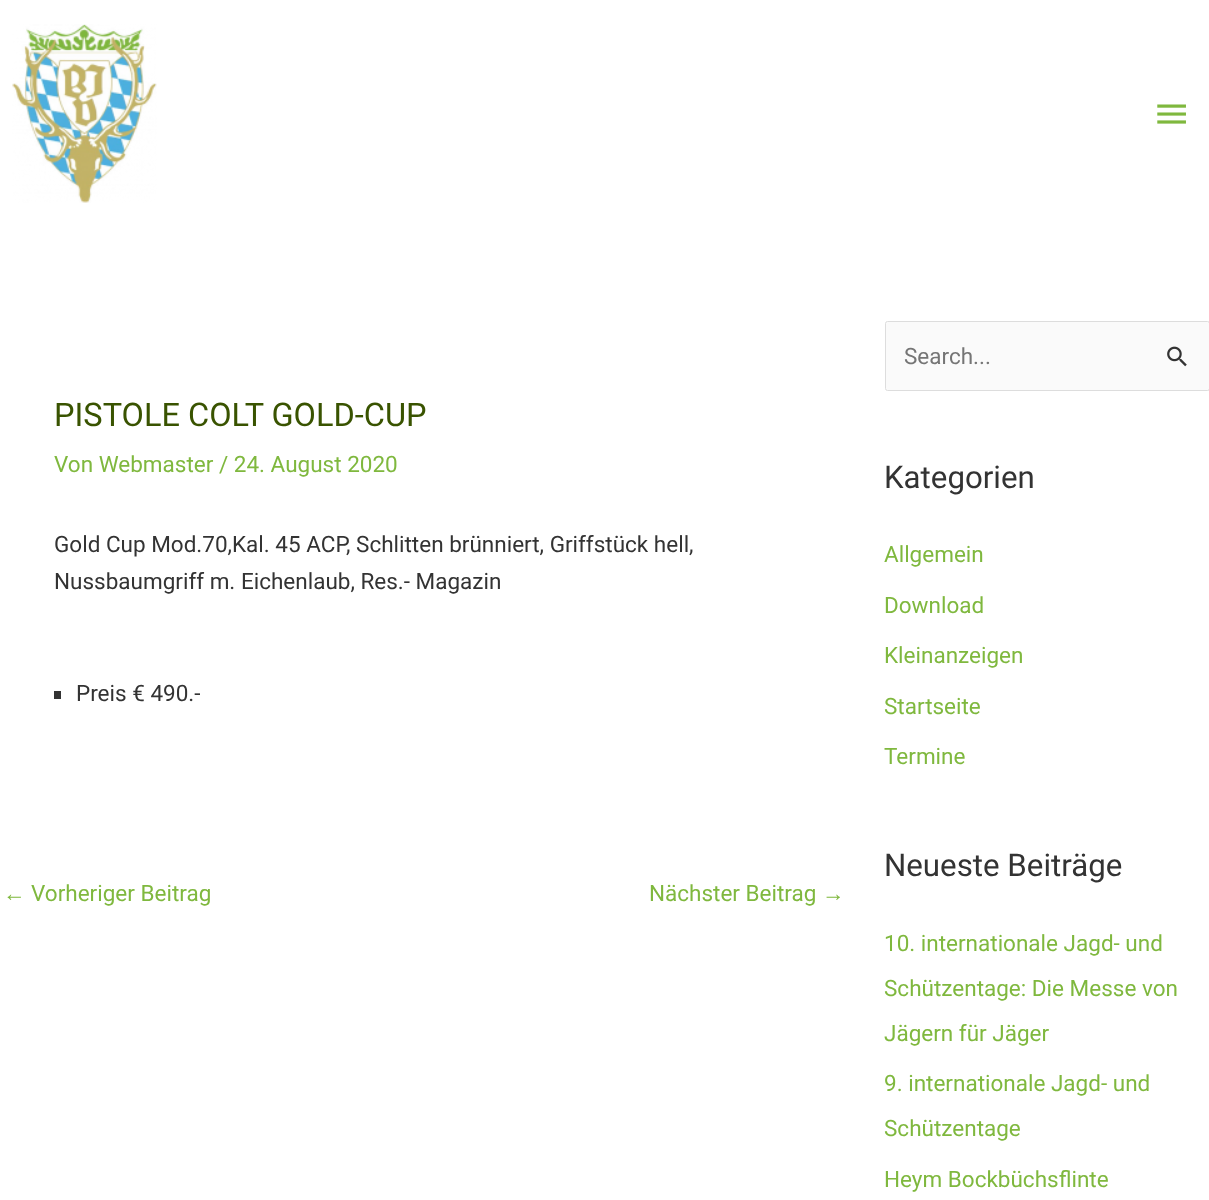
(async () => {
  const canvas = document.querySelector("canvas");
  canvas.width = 1209;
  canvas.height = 1200;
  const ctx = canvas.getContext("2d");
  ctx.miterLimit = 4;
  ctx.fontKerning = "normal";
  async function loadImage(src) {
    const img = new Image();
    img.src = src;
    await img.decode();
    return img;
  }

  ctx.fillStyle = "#ffffff";
  ctx.fillRect(0, 0, 1209, 1200);
  ctx.drawImage(await loadImage("img/1.png"), 12, 24, 145, 179);
  ctx.drawImage(await loadImage("img/2.png"), 1157, 104, 29, 20);
  ctx.fillStyle = "#333333";
  ctx.fillRect(54, 691, 7, 8);
  ctx.fillStyle = "#fafafa";
  ctx.beginPath();
  ctx.roundRect(885.5, 321.5, 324, 69, 2);
  ctx.fill();
  ctx.strokeStyle = "#dddddd";
  ctx.stroke();
  ctx.drawImage(await loadImage("img/3.png"), 1167, 346, 20, 21);
  ctx.font = "32.5px Roboto";
  ctx.fillStyle = "#395300";
  ctx.fillText("PISTOLE COLT GOLD-CUP", 54, 426);
  ctx.font = "22.5px Roboto";
  ctx.fillStyle = "#7fb83e";
  ctx.fillText("Von Webmaster / 24. August 2020", 54, 472);
  ctx.fillStyle = "#333333";
  for (const [text, x, y] of [
    ["Gold Cup Mod.70,Kal. 45 ACP, Schlitten brünniert, Griffstück hell,", 54, 552],
    ["Nussbaumgriff m. Eichenlaub, Res.- Magazin", 54, 589],
    ["Preis € 490.-", 76, 701],
  ]) {
    ctx.fillText(text, x, y);
  }
  ctx.font = "22.5px Liberation Sans";
  ctx.fillStyle = "#7fb83e";
  ctx.fillText("←", 3, 901);
  ctx.font = "22.5px Roboto";
  ctx.fillText("Vorheriger Beitrag", 31, 901);
  ctx.fillText("Nächster Beitrag", 649, 901);
  ctx.font = "22.5px Liberation Sans";
  ctx.fillText("→", 822, 901);
  ctx.font = "22.5px Roboto";
  ctx.fillStyle = "#757575";
  ctx.fillText("Search...", 904, 364);
  ctx.font = "31.25px Roboto";
  ctx.fillStyle = "#333333";
  ctx.fillText("Kategorien", 884, 488);
  ctx.font = "22.5px Roboto";
  ctx.fillStyle = "#7fb83e";
  for (const [text, x, y] of [
    ["Allgemein", 884, 562],
    ["Download", 884, 613],
    ["Kleinanzeigen", 884, 663],
    ["Startseite", 884, 714],
    ["Termine", 884, 764],
  ]) {
    ctx.fillText(text, x, y);
  }
  ctx.font = "31.25px Roboto";
  ctx.fillStyle = "#333333";
  ctx.fillText("Neueste Beiträge", 884, 876);
  ctx.font = "22.5px Roboto";
  ctx.fillStyle = "#7fb83e";
  for (const [text, x, y] of [
    ["10. internationale Jagd- und", 884, 951],
    ["Schützentage: Die Messe von", 884, 996],
    ["Jägern für Jäger", 884, 1041],
    ["9. internationale Jagd- und", 884, 1091],
    ["Schützentage", 884, 1136],
    ["Heym Bockbüchsflinte", 884, 1187],
  ]) {
    ctx.fillText(text, x, y);
  }
})();
